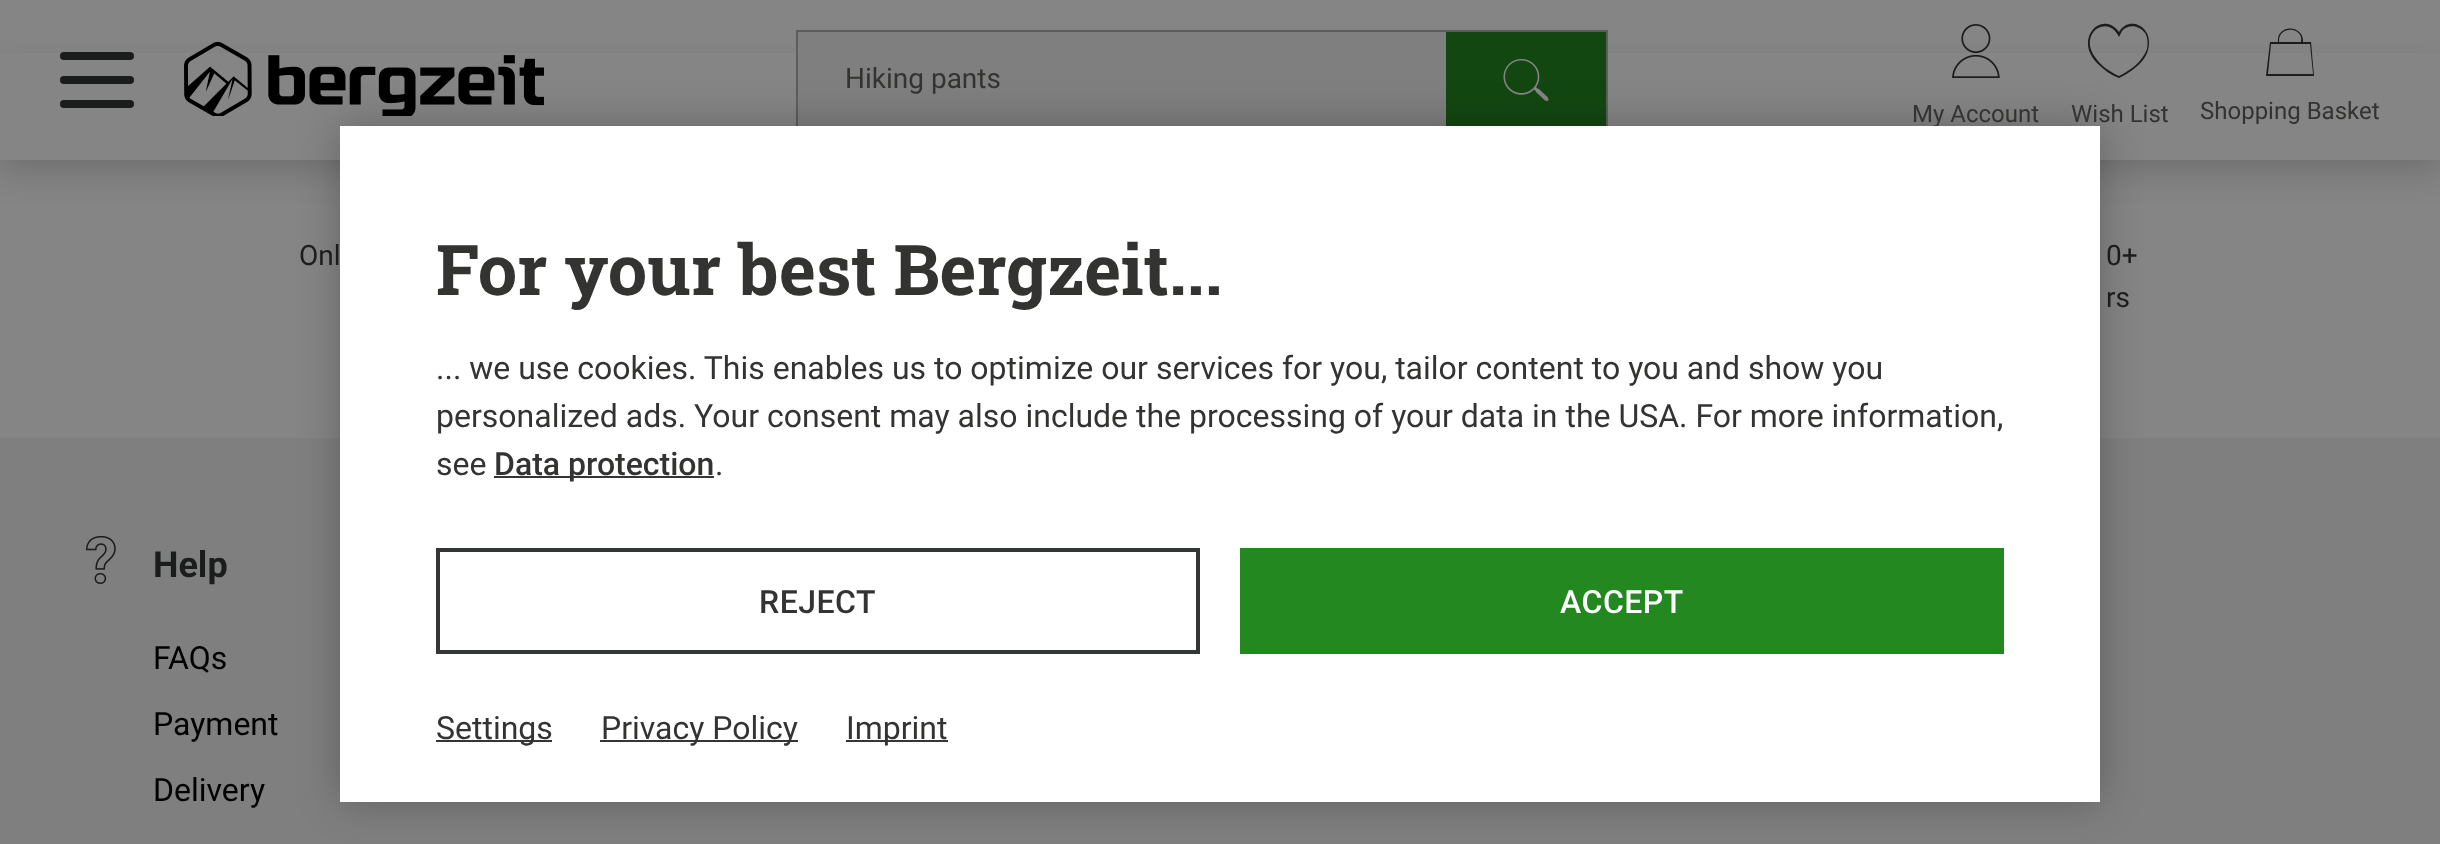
(async () => {
  const canvas = document.querySelector("canvas");
  canvas.width = 2440;
  canvas.height = 844;
  const ctx = canvas.getContext("2d");
  ctx.miterLimit = 4;
  ctx.fontKerning = "normal";
  async function loadImage(src) {
    const img = new Image();
    img.src = src;
    await img.decode();
    return img;
  }
  let path;

  ctx.fillStyle = "#858585";
  ctx.fillRect(0, 0, 2440, 844);
  ctx.fillStyle = "rgba(0, 0, 0, 0.16)";
  ctx.filter = "blur(16px)";
  ctx.beginPath();
  ctx.rect(0, 72, 2440, 100);
  ctx.fill();
  ctx.filter = "none";
  ctx.fillStyle = "#858585";
  ctx.fillRect(0, 53, 2440, 107);
  ctx.fillStyle = "#1b1c1c";
  ctx.beginPath();
  ctx.roundRect(60, 76, 74, 8, 4);
  ctx.fill();
  ctx.beginPath();
  ctx.roundRect(60, 52, 74, 8, 4);
  ctx.fill();
  ctx.beginPath();
  ctx.roundRect(60, 100, 74, 8, 4);
  ctx.fill();
  ctx.drawImage(await loadImage("img/1.png"), 184, 42, 360, 74);
  ctx.strokeStyle = "#5d5d5d";
  ctx.lineWidth = 2;
  ctx.strokeRect(797, 31, 810, 98);
  ctx.fillStyle = "#7f7f7f";
  ctx.fillRect(798, 32, 648, 94);
  ctx.fillStyle = "#134711";
  ctx.fillRect(1446, 32, 160, 94);
  ctx.drawImage(await loadImage("img/2.png"), 1503, 59, 46, 42);
  ctx.drawImage(await loadImage("img/3.png"), 1952, 24, 48, 54);
  ctx.fillStyle = "#1b1c1c";
  path = new Path2D("M2149 43C2150 25 2128 16 2119 32C2103 9 2072 38 2098 64C2104 70 2111 75 2119 78C2133 71 2149 60 2149 43ZM2147 49C2142 62 2131 70 2119 76C2110 72 2101 66 2095 57C2078 33 2108 13 2119 37L2122 31C2128 24 2139 25 2145 33C2148 37 2148 44 2147 49Z");
  ctx.fill(path);
  path = new Path2D("M2311 42H2303C2304 24 2276 24 2278 42H2270L2266 76H2314ZM2279 41C2279 25 2304 27 2301 42H2279ZM2271 44H2310L2313 74H2268Z");
  ctx.fill(path);
  ctx.fillStyle = "#7f7f7f";
  ctx.fillRect(0, 438, 2440, 406);
  ctx.fillStyle = "rgba(0, 0, 0, 0.25)";
  ctx.filter = "blur(20px)";
  ctx.beginPath();
  ctx.rect(340, 126, 1760, 676);
  ctx.fill();
  ctx.filter = "none";
  ctx.drawImage(await loadImage("img/4.png"), 86, 536, 30, 48);
  ctx.font = "28px Roboto";
  ctx.fillStyle = "#333332";
  ctx.fillText("Hiking pants", 845, 88);
  ctx.font = "24px Roboto";
  for (const [text, x, y] of [
    ["My Account", 1912, 122],
    ["Wish List", 2071, 122],
    ["Shopping Basket", 2200, 119],
  ]) {
    ctx.fillText(text, x, y);
  }
  ctx.fillStyle = "#ffffff";
  ctx.fillRect(340, 126, 1760, 676);
  ctx.font = "bold 70px Roboto Slab";
  ctx.fillStyle = "#333332";
  ctx.fillText("For your best Bergzeit...", 436, 295);
  ctx.font = "32px Roboto";
  for (const [text, x, y] of [
    ["... we use cookies. This enables us to optimize our services for you, tailor content to you and show you", 436, 379],
    ["personalized ads. Your consent may also include the processing of your data in the USA. For more information,", 436, 427],
    ["see", 436, 475],
  ]) {
    ctx.fillText(text, x, y);
  }
  ctx.fillStyle = "#343535";
  ctx.fillRect(494, 476, 220, 2);
  ctx.font = "500 32px Roboto";
  ctx.fillStyle = "#333332";
  ctx.fillText("Data protection", 494, 475);
  ctx.font = "32px Roboto";
  ctx.fillText(".", 715, 475);
  ctx.strokeStyle = "#343535";
  ctx.lineWidth = 4;
  ctx.strokeRect(438, 550, 760, 102);
  ctx.letterSpacing = "0.5px";
  ctx.font = "500 32px Roboto";
  ctx.fillText("REJECT", 759, 613);
  ctx.fillStyle = "#248821";
  ctx.fillRect(1240, 548, 764, 106);
  ctx.fillStyle = "#ffffff";
  ctx.fillText("ACCEPT", 1560, 613);
  ctx.fillStyle = "#343535";
  ctx.fillRect(436, 740, 116, 2);
  ctx.letterSpacing = "0px";
  ctx.font = "32px Roboto";
  ctx.fillStyle = "#333332";
  ctx.fillText("Settings", 436, 739);
  ctx.fillStyle = "#343535";
  ctx.fillRect(600, 740, 198, 2);
  ctx.fillStyle = "#333332";
  ctx.fillText("Privacy Policy", 601, 739);
  ctx.fillStyle = "#343535";
  ctx.fillRect(846, 740, 102, 2);
  ctx.fillStyle = "#333332";
  ctx.fillText("Imprint", 846, 739);
  ctx.font = "28px Roboto";
  ctx.fillStyle = "#1b1c1c";
  for (const [text, x, y] of [
    ["Onl", 299, 265],
    ["0+", 2106, 265],
    ["rs", 2106, 307],
  ]) {
    ctx.fillText(text, x, y);
  }
  ctx.font = "bold 36px Roboto";
  ctx.fillText("Help", 153, 577);
  ctx.font = "32px Roboto";
  ctx.fillStyle = "#000000";
  for (const [text, x, y] of [
    ["FAQs", 153, 669],
    ["Payment", 153, 735],
    ["Delivery", 153, 801],
  ]) {
    ctx.fillText(text, x, y);
  }
})();
